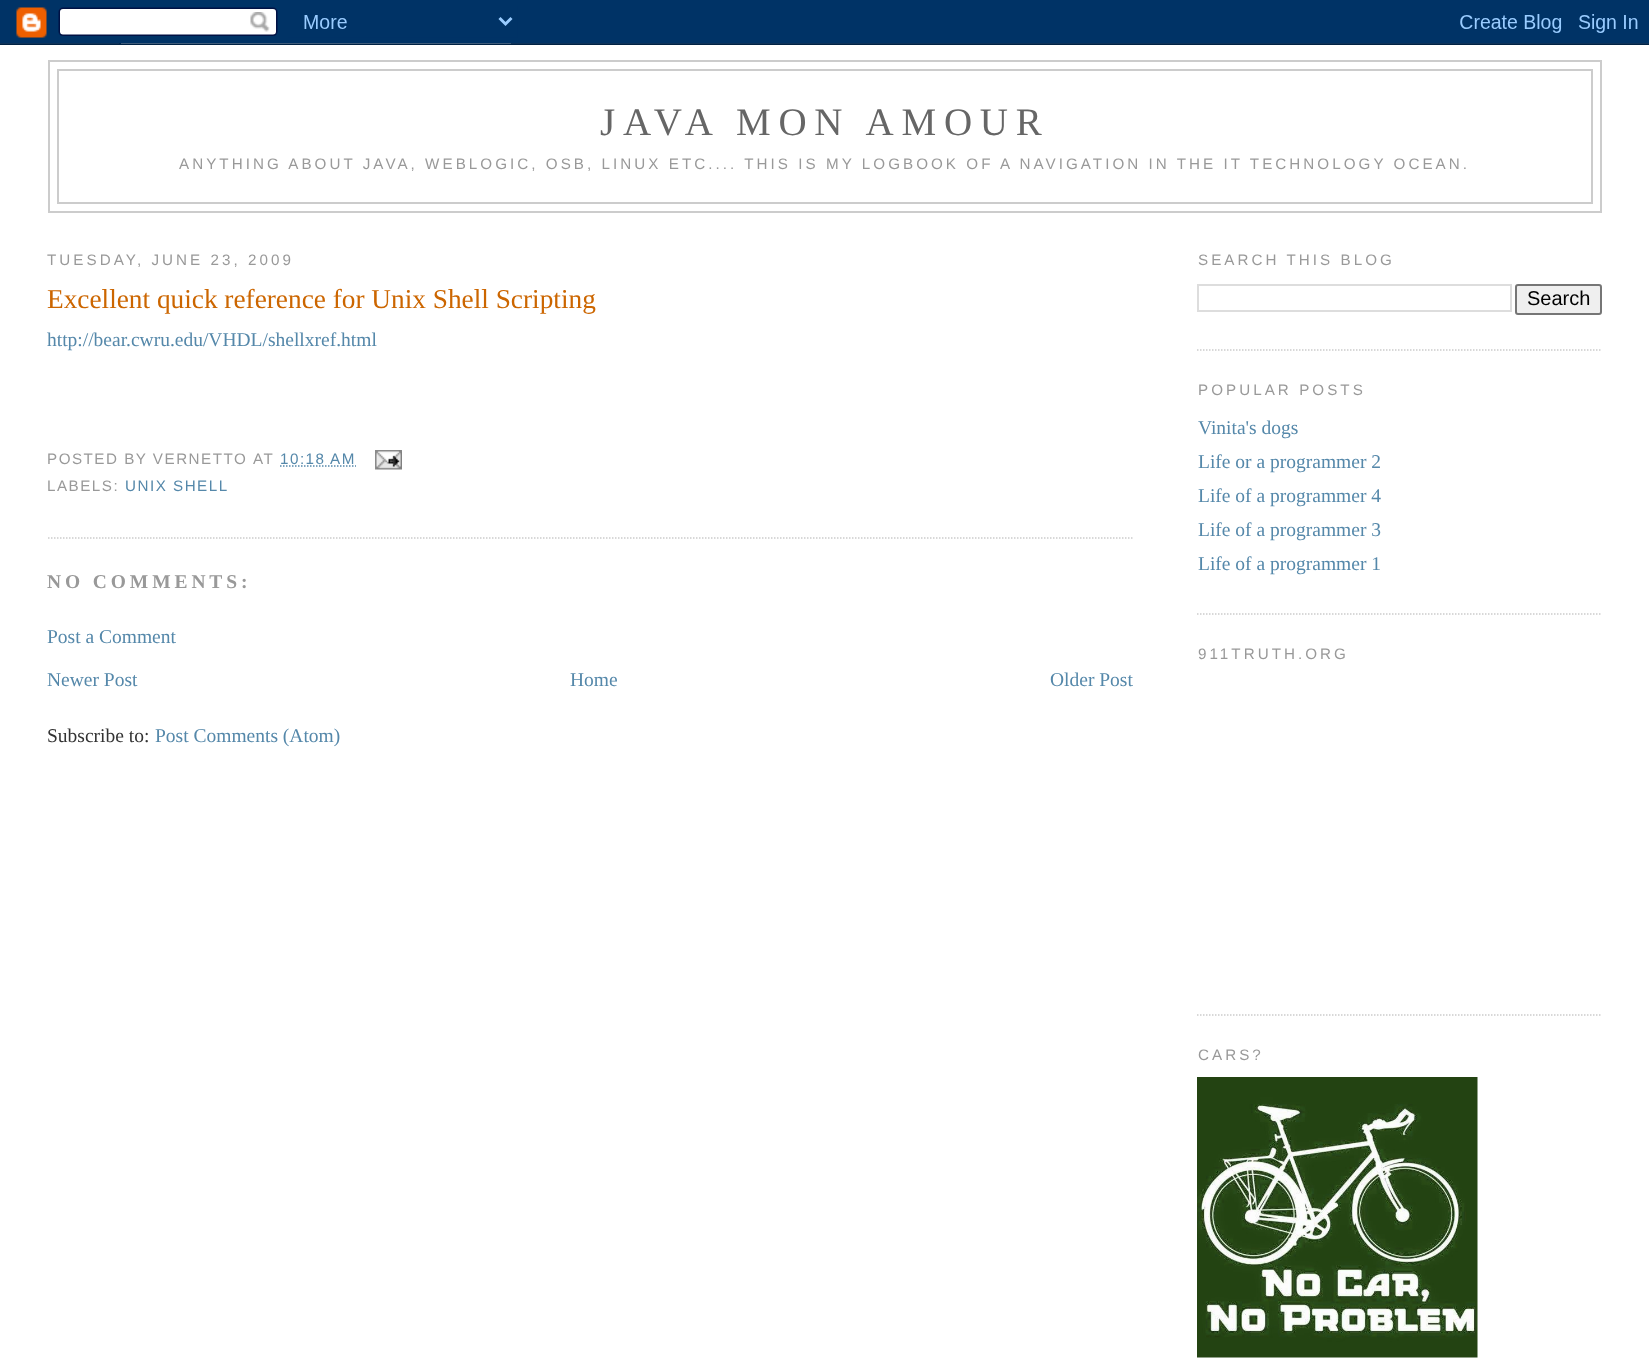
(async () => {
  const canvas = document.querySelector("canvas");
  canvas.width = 1649;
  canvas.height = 1362;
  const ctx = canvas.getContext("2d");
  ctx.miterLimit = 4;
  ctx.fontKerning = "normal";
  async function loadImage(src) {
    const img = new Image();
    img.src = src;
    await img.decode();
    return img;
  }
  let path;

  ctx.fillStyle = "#ffffff";
  ctx.fillRect(0, 0, 1649, 1362);
  ctx.drawImage(await loadImage("img/1.png"), 0, 0, 1649, 45);
  ctx.strokeStyle = "#cccccc";
  ctx.lineWidth = 2;
  ctx.strokeRect(49, 61, 1552, 151);
  ctx.strokeRect(58, 70, 1534, 133);
  path = new Path2D("M48 538H1132.5");
  ctx.lineWidth = 1.5;
  ctx.setLineDash([1.5, 1.5]);
  ctx.stroke(path);
  path = new Path2D("M280 466H356");
  ctx.strokeStyle = "#5588aa";
  ctx.stroke(path);
  ctx.drawImage(await loadImage("img/2.png"), 375, 450, 27, 20);
  path = new Path2D("M1197 350H1602");
  ctx.strokeStyle = "#cccccc";
  ctx.stroke(path);
  ctx.strokeStyle = "#dddddd";
  ctx.lineWidth = 2;
  ctx.setLineDash([]);
  ctx.strokeRect(1198, 285, 313, 26);
  ctx.fillStyle = "#efefef";
  ctx.beginPath();
  ctx.roundRect(1516, 285, 85, 29, 2);
  ctx.fill();
  ctx.strokeStyle = "#767676";
  ctx.stroke();
  path = new Path2D("M1197 614H1602");
  ctx.strokeStyle = "#cccccc";
  ctx.lineWidth = 1.5;
  ctx.setLineDash([1.5, 1.5]);
  ctx.stroke(path);
  path = new Path2D("M1197 1015H1602");
  ctx.stroke(path);
  ctx.drawImage(await loadImage("img/3.png"), 1197, 1077, 281, 281);
  ctx.letterSpacing = "7.75px";
  ctx.font = "39px Liberation Serif";
  ctx.fillStyle = "#666666";
  ctx.fillText("JAVA MON AMOUR", 600, 135);
  ctx.letterSpacing = "3.04px";
  ctx.font = "15.2px Liberation Sans";
  ctx.fillStyle = "#999999";
  ctx.fillText("ANYTHING ABOUT JAVA, WEBLOGIC, OSB, LINUX ETC.... THIS IS MY LOGBOOK OF A NAVIGATION IN THE IT TECHNOLOGY OCEAN.", 179, 169);
  ctx.fillText("TUESDAY, JUNE 23, 2009", 47, 265);
  ctx.letterSpacing = "0px";
  ctx.font = "27.3px Liberation Serif";
  ctx.fillStyle = "#cc6600";
  ctx.fillText("Excellent quick reference for Unix Shell Scripting", 47, 308);
  ctx.font = "19.5px Liberation Serif";
  ctx.fillStyle = "#5588aa";
  ctx.fillText("http://bear.cwru.edu/VHDL/shellxref.html", 47, 346);
  ctx.letterSpacing = "1.5px";
  ctx.font = "15.2px Liberation Sans";
  ctx.fillStyle = "#999999";
  ctx.fillText("POSTED BY VERNETTO", 47, 464);
  ctx.fillText("AT", 253, 464);
  ctx.fillStyle = "#5588aa";
  ctx.fillText("10:18 AM", 280, 464);
  ctx.fillStyle = "#999999";
  ctx.fillText("LABELS:", 47, 491);
  ctx.fillStyle = "#5588aa";
  ctx.fillText("UNIX SHELL", 125, 491);
  ctx.letterSpacing = "3.9px";
  ctx.font = "bold 19.5px Liberation Serif";
  ctx.fillStyle = "#999999";
  ctx.fillText("NO COMMENTS:", 47, 588);
  ctx.letterSpacing = "0px";
  ctx.font = "19.5px Liberation Serif";
  ctx.fillStyle = "#5588aa";
  for (const [text, x, y] of [
    ["Post a Comment", 47, 643],
    ["Newer Post", 47, 686],
    ["Home", 570, 686],
    ["Older Post", 1050, 686],
  ]) {
    ctx.fillText(text, x, y);
  }
  ctx.fillStyle = "#333333";
  ctx.fillText("Subscribe to:", 47, 742);
  ctx.fillStyle = "#5588aa";
  ctx.fillText("Post Comments (Atom)", 155, 742);
  ctx.letterSpacing = "3.04px";
  ctx.font = "15.2px Liberation Sans";
  ctx.fillStyle = "#999999";
  ctx.fillText("SEARCH THIS BLOG", 1198, 265);
  ctx.letterSpacing = "0px";
  ctx.font = "20px Liberation Sans";
  ctx.fillStyle = "#000000";
  ctx.fillText("Search", 1527, 305);
  ctx.letterSpacing = "3.04px";
  ctx.font = "15.2px Liberation Sans";
  ctx.fillStyle = "#999999";
  ctx.fillText("POPULAR POSTS", 1198, 395);
  ctx.letterSpacing = "0px";
  ctx.font = "19.5px Liberation Serif";
  ctx.fillStyle = "#5588aa";
  for (const [text, x, y] of [
    ["Vinita's dogs", 1198, 434],
    ["Life or a programmer 2", 1198, 468],
    ["Life of a programmer 4", 1198, 502],
    ["Life of a programmer 3", 1198, 536],
    ["Life of a programmer 1", 1198, 570],
  ]) {
    ctx.fillText(text, x, y);
  }
  ctx.letterSpacing = "3.04px";
  ctx.font = "15.2px Liberation Sans";
  ctx.fillStyle = "#999999";
  ctx.fillText("911TRUTH.ORG", 1198, 659);
  ctx.fillText("CARS?", 1198, 1060);
})();
